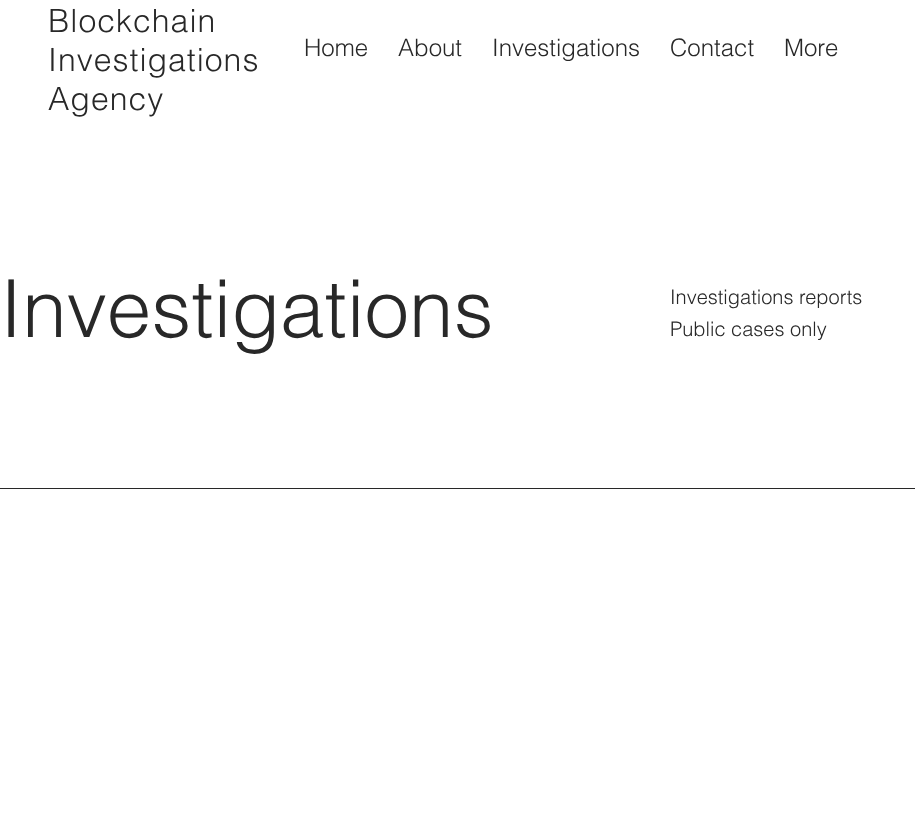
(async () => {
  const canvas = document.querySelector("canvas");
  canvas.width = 915;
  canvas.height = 814;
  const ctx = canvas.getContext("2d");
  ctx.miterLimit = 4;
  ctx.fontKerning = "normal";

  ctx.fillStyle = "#ffffff";
  ctx.fillRect(0, 0, 915, 814);
  ctx.fillStyle = "#282828";
  ctx.fillRect(0, 488, 915, 1);
  ctx.letterSpacing = "1px";
  ctx.font = "300 32px helvetica";
  for (const [text, x, y] of [
    ["Blockchain", 48, 32],
    ["Investigations", 48, 71],
    ["Agency", 48, 110],
  ]) {
    ctx.fillText(text, x, y);
  }
  ctx.letterSpacing = "0px";
  ctx.font = "300 24px helvetica";
  for (const [text, x, y] of [
    ["Home", 304, 56],
    ["About", 398, 56],
    ["Investigations", 492, 56],
    ["Contact", 670, 56],
    ["More", 784, 56],
  ]) {
    ctx.fillText(text, x, y);
  }
  ctx.font = "300 80px helvetica";
  ctx.fillText("Investigations", 0, 337);
  ctx.font = "300 20px helvetica";
  ctx.fillText("Investigations reports", 670, 304);
  ctx.fillText("Public cases only", 670, 336);
})();
